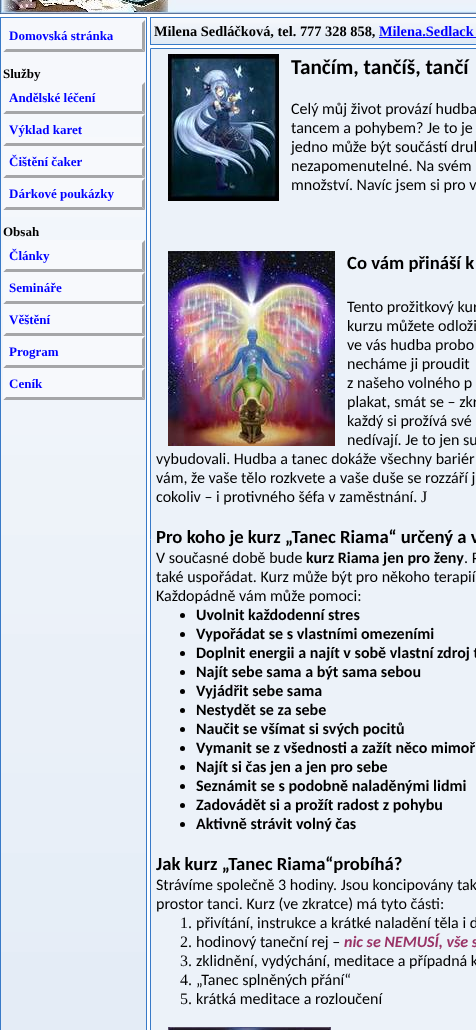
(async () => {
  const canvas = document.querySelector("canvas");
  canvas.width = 476;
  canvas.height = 1030;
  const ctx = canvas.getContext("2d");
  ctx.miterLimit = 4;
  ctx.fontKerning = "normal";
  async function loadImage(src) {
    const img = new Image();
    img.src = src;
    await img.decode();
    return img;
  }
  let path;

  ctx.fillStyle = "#ffffff";
  ctx.fillRect(0, 0, 476, 1030);
  ctx.drawImage(await loadImage("img/1.png"), 0, 0, 476, 14);
  ctx.drawImage(await loadImage("img/2.png"), 0, 17, 147, 1013);
  ctx.drawImage(await loadImage("img/3.png"), 150, 17, 326, 28);
  ctx.fillStyle = "#a5a6a8";
  path = new Path2D("M145 20V52L142 49V23Z");
  ctx.fill(path);
  path = new Path2D("M145 52H3L6 49H142Z");
  ctx.fill(path);
  ctx.fillStyle = "#f7f9fc";
  path = new Path2D("M3 52V20L6 23V49Z");
  ctx.fill(path);
  ctx.fillStyle = "#a5a6a8";
  path = new Path2D("M145 82V114L142 111V85Z");
  ctx.fill(path);
  path = new Path2D("M145 114H3L6 111H142Z");
  ctx.fill(path);
  ctx.fillStyle = "#f7f9fc";
  path = new Path2D("M3 114V82L6 85V111Z");
  ctx.fill(path);
  ctx.fillRect(3, 137, 142, 73);
  ctx.fillStyle = "#a5a6a8";
  path = new Path2D("M145 114V146L142 143V117Z");
  ctx.fill(path);
  path = new Path2D("M145 146H3L6 143H142Z");
  ctx.fill(path);
  ctx.fillStyle = "#f7f9fc";
  path = new Path2D("M3 146V114L6 117V143Z");
  ctx.fill(path);
  ctx.fillStyle = "#a5a6a8";
  path = new Path2D("M145 146V178L142 175V149Z");
  ctx.fill(path);
  path = new Path2D("M145 178H3L6 175H142Z");
  ctx.fill(path);
  ctx.fillStyle = "#f7f9fc";
  path = new Path2D("M3 178V146L6 149V175Z");
  ctx.fill(path);
  ctx.fillStyle = "#a5a6a8";
  path = new Path2D("M145 178V210L142 207V181Z");
  ctx.fill(path);
  path = new Path2D("M145 210H3L6 207H142Z");
  ctx.fill(path);
  ctx.fillStyle = "#f7f9fc";
  path = new Path2D("M3 210V178L6 181V207Z");
  ctx.fill(path);
  ctx.fillRect(3, 240, 142, 160);
  ctx.fillStyle = "#a5a6a8";
  path = new Path2D("M145 240V272L142 269V243Z");
  ctx.fill(path);
  path = new Path2D("M145 272H3L6 269H142Z");
  ctx.fill(path);
  ctx.fillStyle = "#f7f9fc";
  path = new Path2D("M3 272V240L6 243V269Z");
  ctx.fill(path);
  ctx.fillStyle = "#a5a6a8";
  path = new Path2D("M145 272V304L142 301V275Z");
  ctx.fill(path);
  path = new Path2D("M145 304H3L6 301H142Z");
  ctx.fill(path);
  ctx.fillStyle = "#f7f9fc";
  path = new Path2D("M3 304V272L6 275V301Z");
  ctx.fill(path);
  ctx.fillStyle = "#a5a6a8";
  path = new Path2D("M145 304V336L142 333V307Z");
  ctx.fill(path);
  path = new Path2D("M145 336H3L6 333H142Z");
  ctx.fill(path);
  ctx.fillStyle = "#f7f9fc";
  path = new Path2D("M3 336V304L6 307V333Z");
  ctx.fill(path);
  ctx.fillStyle = "#a5a6a8";
  path = new Path2D("M145 336V368L142 365V339Z");
  ctx.fill(path);
  path = new Path2D("M145 368H3L6 365H142Z");
  ctx.fill(path);
  ctx.fillStyle = "#f7f9fc";
  path = new Path2D("M3 368V336L6 339V365Z");
  ctx.fill(path);
  ctx.fillStyle = "#a5a6a8";
  path = new Path2D("M145 368V400L142 397V371Z");
  ctx.fill(path);
  path = new Path2D("M145 400H3L6 397H142Z");
  ctx.fill(path);
  ctx.fillStyle = "#f7f9fc";
  path = new Path2D("M3 400V368L6 371V397Z");
  ctx.fill(path);
  ctx.fillStyle = "#0000ff";
  ctx.fillRect(379, 37, 97, 1);
  ctx.fillStyle = "#ecf2f9";
  ctx.beginPath();
  ctx.rect(150.5, 48.5, 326, 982);
  ctx.fill();
  ctx.strokeStyle = "#387ac8";
  ctx.stroke();
  ctx.drawImage(await loadImage("img/4.png"), 168, 54, 111, 147);
  ctx.drawImage(await loadImage("img/5.png"), 168, 251, 167, 195);
  ctx.fillStyle = "#000000";
  ctx.beginPath();
  ctx.arc(182.5, 615.5, 2.5, 0, Math.PI * 2);
  ctx.fill();
  ctx.beginPath();
  ctx.arc(182.5, 634.5, 2.5, 0, Math.PI * 2);
  ctx.fill();
  ctx.beginPath();
  ctx.arc(182.5, 653.5, 2.5, 0, Math.PI * 2);
  ctx.fill();
  ctx.beginPath();
  ctx.arc(182.5, 672.5, 2.5, 0, Math.PI * 2);
  ctx.fill();
  ctx.beginPath();
  ctx.arc(182.5, 691.5, 2.5, 0, Math.PI * 2);
  ctx.fill();
  ctx.beginPath();
  ctx.arc(182.5, 710.5, 2.5, 0, Math.PI * 2);
  ctx.fill();
  ctx.beginPath();
  ctx.arc(182.5, 729.5, 2.5, 0, Math.PI * 2);
  ctx.fill();
  ctx.beginPath();
  ctx.arc(182.5, 748.5, 2.5, 0, Math.PI * 2);
  ctx.fill();
  ctx.beginPath();
  ctx.arc(182.5, 767.5, 2.5, 0, Math.PI * 2);
  ctx.fill();
  ctx.beginPath();
  ctx.arc(182.5, 786.5, 2.5, 0, Math.PI * 2);
  ctx.fill();
  ctx.beginPath();
  ctx.arc(182.5, 805.5, 2.5, 0, Math.PI * 2);
  ctx.fill();
  ctx.beginPath();
  ctx.arc(182.5, 824.5, 2.5, 0, Math.PI * 2);
  ctx.fill();
  ctx.drawImage(await loadImage("img/6.png"), 168, 1027, 163, 3);
  ctx.font = "bold 13px Liberation Serif";
  ctx.fillStyle = "#0000ff";
  ctx.fillText("Domovská stránka", 9, 40);
  ctx.fillStyle = "#000000";
  ctx.fillText("Služby", 3, 78);
  ctx.fillStyle = "#0000ff";
  for (const [text, x, y] of [
    ["Andělské léčení", 9, 102],
    ["Výklad karet", 9, 134],
    ["Čištění čaker", 9, 166],
    ["Dárkové poukázky", 9, 198],
  ]) {
    ctx.fillText(text, x, y);
  }
  ctx.fillStyle = "#000000";
  ctx.fillText("Obsah", 3, 236);
  ctx.fillStyle = "#0000ff";
  for (const [text, x, y] of [
    ["Články", 9, 260],
    ["Semináře", 9, 292],
    ["Věštění", 9, 324],
    ["Program", 9, 356],
    ["Ceník", 9, 388],
  ]) {
    ctx.fillText(text, x, y);
  }
  ctx.font = "bold 14.4px Liberation Serif";
  ctx.fillStyle = "#000000";
  ctx.fillText("Milena Sedláčková, tel. 777 328 858,", 154, 36);
  ctx.fillStyle = "#0000ff";
  ctx.fillText("Milena.Sedlack", 379, 36);
  ctx.font = "bold 21.25px Carlito";
  ctx.fillStyle = "#000000";
  ctx.fillText("Tančím, tančíš, tančí", 291, 74);
  ctx.font = "16px Carlito";
  for (const [text, x, y] of [
    ["Celý můj život provází hudba", 291, 114],
    ["tancem a pohybem? Je to je", 291, 133],
    ["jedno může být součástí druh", 291, 152],
    ["nezapomenutelné. Na svém", 291, 171],
    ["množství. Navíc jsem si pro v", 291, 190],
  ]) {
    ctx.fillText(text, x, y);
  }
  ctx.font = "bold 18.7px Carlito";
  ctx.fillText("Co vám přináší k", 347, 269);
  ctx.font = "16px Carlito";
  for (const [text, x, y] of [
    ["Tento prožitkový kur", 347, 312],
    ["kurzu můžete odloži", 347, 331],
    ["ve vás hudba probo", 347, 350],
    ["necháme ji proudit", 347, 369],
    ["z našeho volného p", 347, 388],
    ["plakat, smát se – zkr", 347, 407],
    ["každý si prožívá své", 347, 426],
    ["nedívají. Je to jen su", 347, 445],
    ["vybudovali. Hudba a tanec dokáže všechny bariér", 156, 464],
    ["vám, že vaše tělo rozkvete a vaše duše se rozzáří j", 156, 483],
    ["cokoliv – i protivného šéfa v zaměstnání.", 156, 502],
  ]) {
    ctx.fillText(text, x, y);
  }
  ctx.font = "16px Liberation Serif";
  ctx.fillText("J", 421, 502);
  ctx.font = "bold 18.7px Carlito";
  ctx.fillText("Pro koho je kurz „Tanec Riama“ určený a v", 156, 543);
  ctx.font = "16px Carlito";
  ctx.fillText("V současné době bude", 156, 563);
  ctx.font = "bold 16px Carlito";
  ctx.fillText("kurz Riama jen pro ženy", 306, 563);
  ctx.font = "16px Carlito";
  for (const [text, x, y] of [
    [". P", 464, 563],
    ["také uspořádat. Kurz může být pro někoho terapií", 156, 582],
    ["Každopádně vám může pomoci:", 156, 601],
  ]) {
    ctx.fillText(text, x, y);
  }
  ctx.font = "bold 16px Carlito";
  for (const [text, x, y] of [
    ["Uvolnit každodenní stres", 196, 620],
    ["Vypořádat se s vlastními omezeními", 196, 639],
    ["Doplnit energii a najít v sobě vlastní zdroj t", 196, 658],
    ["Najít sebe sama a být sama sebou", 196, 677],
    ["Vyjádřit sebe sama", 196, 696],
    ["Nestydět se za sebe", 196, 715],
    ["Naučit se všímat si svých pocitů", 196, 734],
    ["Vymanit se z všednosti a zažít něco mimoř", 196, 753],
    ["Najít si čas jen a jen pro sebe", 196, 772],
    ["Seznámit se s podobně naladěnými lidmi", 196, 791],
    ["Zadovádět si a prožít radost z pohybu", 196, 810],
    ["Aktivně strávit volný čas", 196, 829],
  ]) {
    ctx.fillText(text, x, y);
  }
  ctx.font = "bold 18.7px Carlito";
  ctx.fillText("Jak kurz „Tanec Riama“probíhá?", 156, 870);
  ctx.font = "16px Carlito";
  ctx.fillText("Strávíme společně 3 hodiny. Jsou koncipovány tak", 156, 890);
  ctx.fillText("prostor tanci. Kurz (ve zkratce) má tyto části:", 156, 909);
  ctx.font = "16px Liberation Serif";
  ctx.fillText("1.", 180, 928);
  ctx.font = "16px Carlito";
  ctx.fillText("přivítání, instrukce a krátké naladění těla i d", 196, 928);
  ctx.font = "16px Liberation Serif";
  ctx.fillText("2.", 180, 947);
  ctx.font = "16px Carlito";
  ctx.fillText("hodinový taneční rej –", 196, 947);
  ctx.font = "italic bold 16px Carlito";
  ctx.fillStyle = "#993366";
  ctx.fillText("nic se NEMUSÍ, vše s", 344, 947);
  ctx.font = "16px Liberation Serif";
  ctx.fillStyle = "#000000";
  ctx.fillText("3.", 180, 966);
  ctx.font = "16px Carlito";
  ctx.fillText("zklidnění, vydýchání, meditace a případná k", 196, 966);
  ctx.font = "16px Liberation Serif";
  ctx.fillText("4.", 180, 985);
  ctx.font = "16px Carlito";
  ctx.fillText("„Tanec splněných přání“", 196, 985);
  ctx.font = "16px Liberation Serif";
  ctx.fillText("5.", 180, 1004);
  ctx.font = "16px Carlito";
  ctx.fillText("krátká meditace a rozloučení", 196, 1004);
})();
